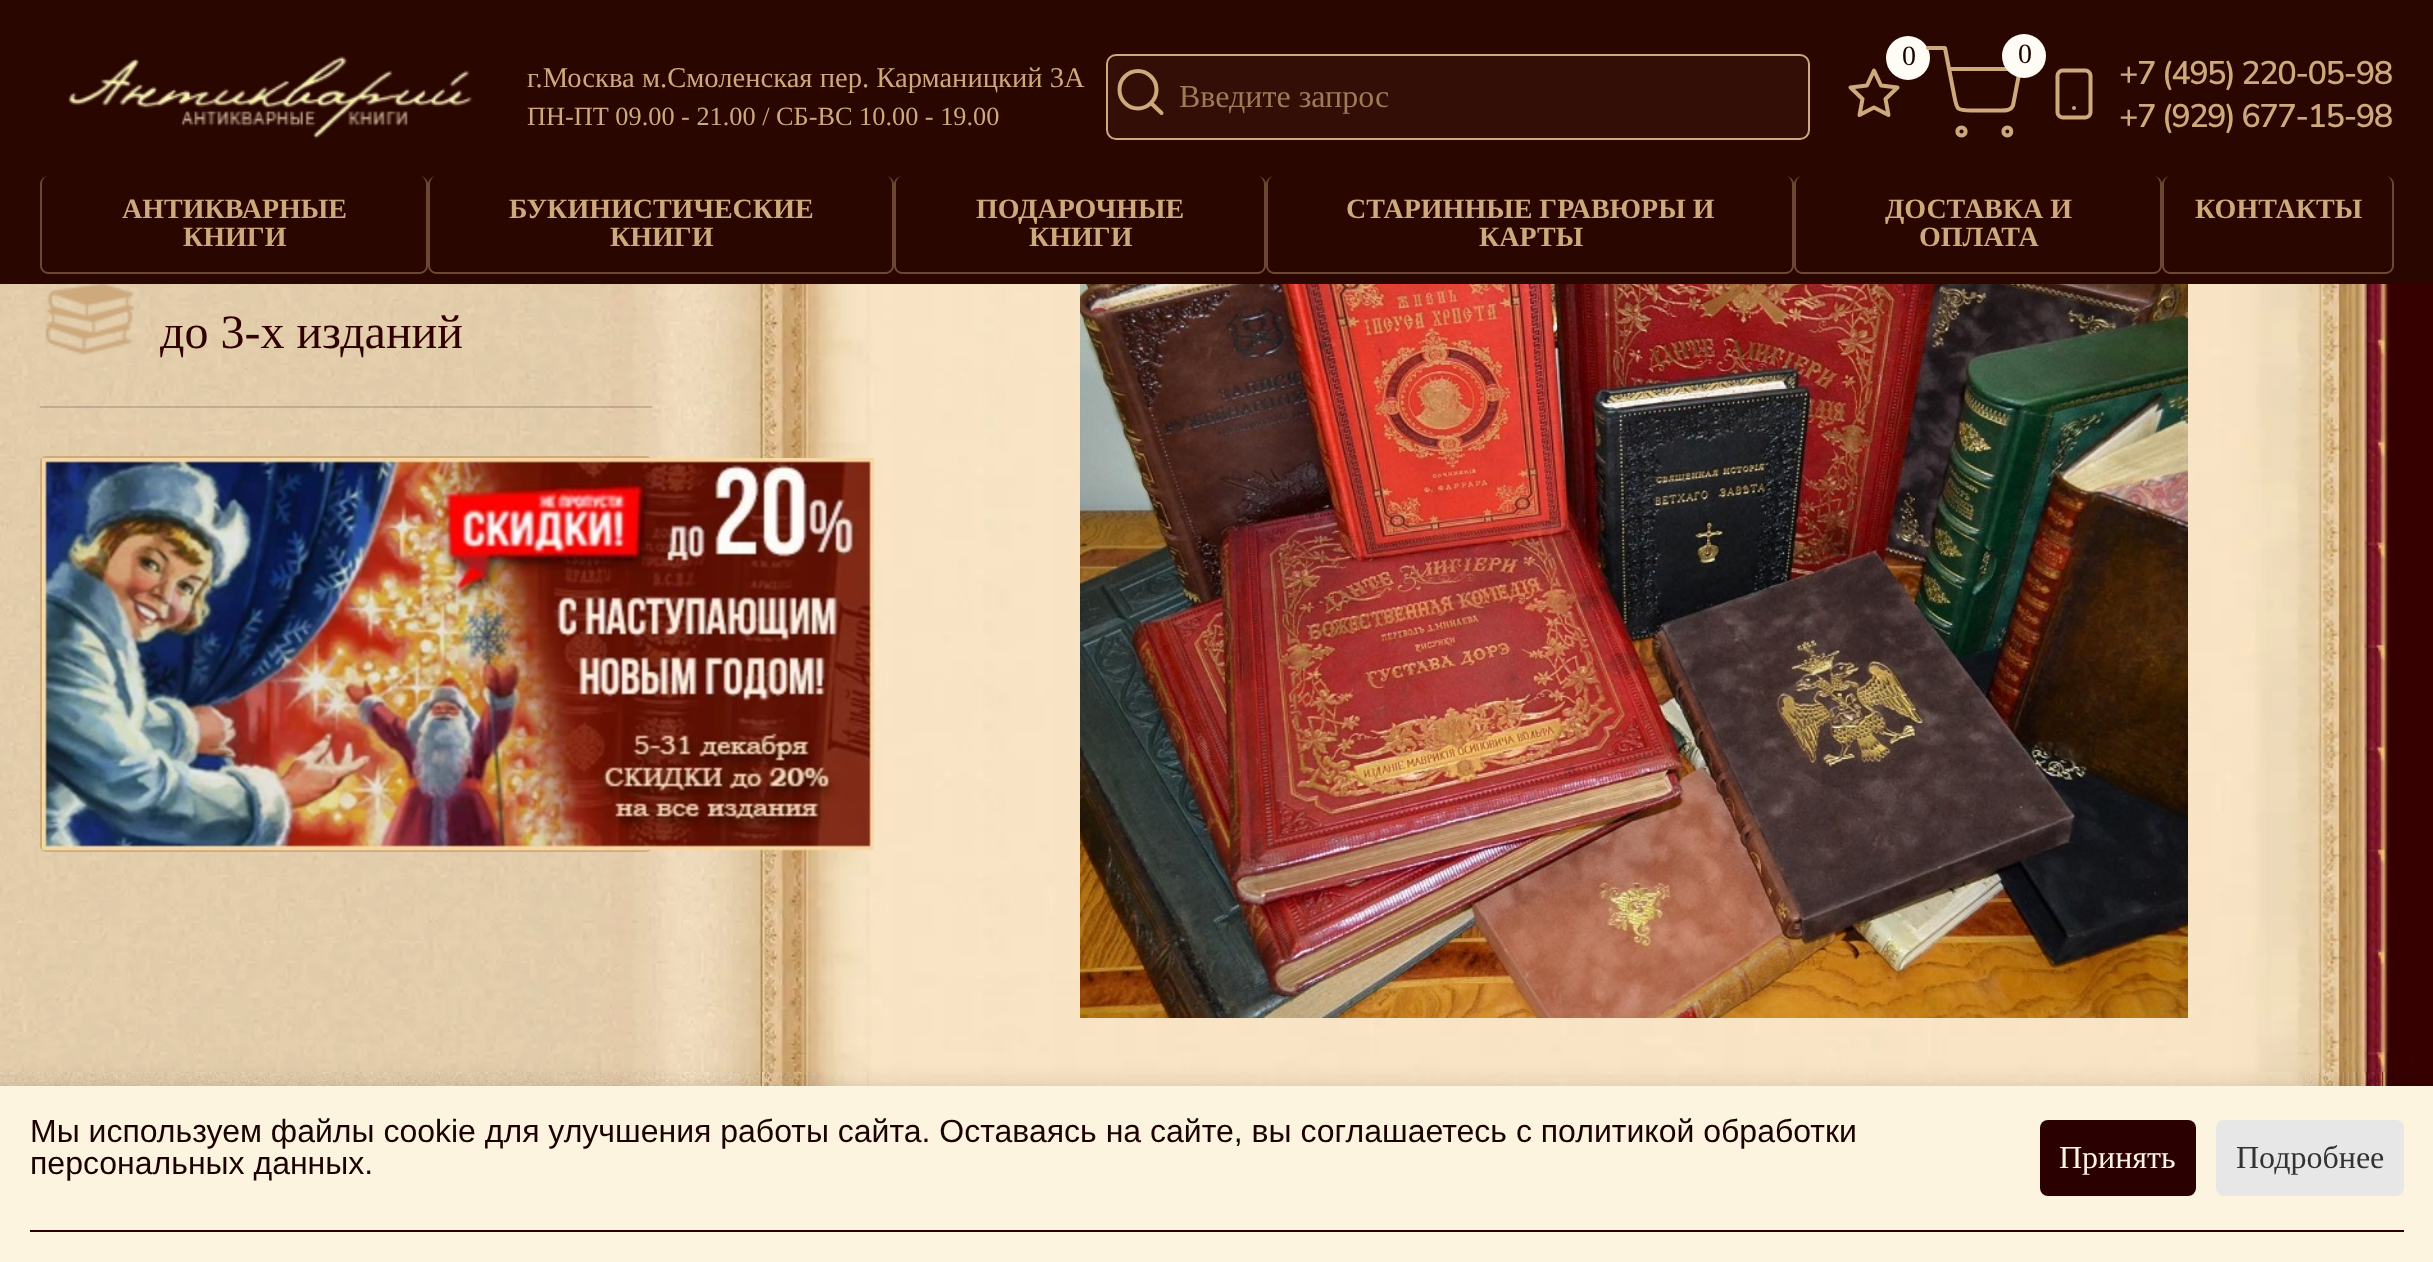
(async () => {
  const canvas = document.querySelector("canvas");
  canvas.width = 2433;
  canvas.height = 1262;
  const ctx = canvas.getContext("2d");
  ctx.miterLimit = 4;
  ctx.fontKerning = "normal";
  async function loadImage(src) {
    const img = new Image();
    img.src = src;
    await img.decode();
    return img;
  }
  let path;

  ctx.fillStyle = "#ffffff";
  ctx.fillRect(0, 0, 2433, 1262);
  ctx.fillStyle = "#2a0601";
  ctx.fillRect(0, 0, 2433, 284);
  ctx.drawImage(await loadImage("img/1.png"), 68, 56, 405, 83);
  ctx.fillStyle = "#320e07";
  ctx.beginPath();
  ctx.roundRect(1107, 55, 702, 84, 9);
  ctx.fill();
  ctx.strokeStyle = "#cea97c";
  ctx.lineWidth = 2;
  ctx.stroke();
  path = new Path2D("M1138 108.5C1148 108.5 1156.5 100 1156.5 89.5C1156.5 79.5 1148 71 1138 71C1127.5 71 1119.5 79.5 1119.5 89.5C1119.5 100 1127.5 108.5 1138 108.5ZM1161.5 113L1151 103");
  ctx.lineWidth = 4;
  ctx.lineCap = "round";
  ctx.lineJoin = "round";
  ctx.stroke(path);
  path = new Path2D("M1874 70.5L1881 85.5L1897.5 87.5L1885.5 99L1888.5 115L1874 107.5L1859.5 115L1862.5 99L1850.5 87.5L1867 85.5Z");
  ctx.stroke(path);
  ctx.fillStyle = "#fefcf5";
  ctx.beginPath();
  ctx.arc(1908, 58, 22, 0, Math.PI * 2);
  ctx.fill();
  path = new Path2D("M1928 48H1945L1954 94.5C1957 109.5 1956 110.5 1971 110.5H1998C2003.5 110.5 2010.5 111.5 2013 105.5L2020 69H1949");
  ctx.stroke(path);
  ctx.beginPath();
  ctx.arc(2024, 56, 22, 0, Math.PI * 2);
  ctx.fill();
  path = new Path2D("M1961.5 135.5C1967 135.5 1967 127.5 1961.5 127.5C1956 127.5 1956 135.5 1961.5 135.5ZM2007.5 135.5C2012.5 135.5 2012.5 127.5 2007.5 127.5C2002 127.5 2002 135.5 2007.5 135.5Z");
  ctx.stroke(path);
  path = new Path2D("M2085.5 70.5H2062.5C2060 70.5 2057.5 73 2057.5 75.5V112.5C2057.5 115 2060 117.5 2062.5 117.5H2085.5C2088 117.5 2090.5 115 2090.5 112.5V75.5C2090.5 73 2088 70.5 2085.5 70.5ZM2074 108H2074");
  ctx.stroke(path);
  ctx.fillStyle = "#6c4732";
  path = new Path2D("M48 176H420C424 176 428 180 428 184V266C428 270 424 274 420 274H48C44 274 40 270 40 266V184C40 180 44 176 48 176ZM48 176H420C423 176 426 180 426 184V266C426 269 423 272 420 272H48C45 272 42 269 42 266V184C42 180 45 176 48 176Z");
  ctx.fill(path, "evenodd");
  path = new Path2D("M436 176H886C890 176 894 180 894 184V266C894 270 890 274 886 274H436C432 274 428 270 428 266V184C428 180 432 176 436 176ZM436 176H886C889 176 892 180 892 184V266C892 269 889 272 886 272H436C433 272 430 269 430 266V184C430 180 433 176 436 176Z");
  ctx.fill(path, "evenodd");
  path = new Path2D("M902 176H1258C1262 176 1266 180 1266 184V266C1266 270 1262 274 1258 274H902C898 274 894 270 894 266V184C894 180 898 176 902 176ZM902 176H1258C1261 176 1264 180 1264 184V266C1264 269 1261 272 1258 272H902C899 272 896 269 896 266V184C896 180 899 176 902 176Z");
  ctx.fill(path, "evenodd");
  path = new Path2D("M1274 176H1786C1790 176 1794 180 1794 184V266C1794 270 1790 274 1786 274H1274C1270 274 1266 270 1266 266V184C1266 180 1270 176 1274 176ZM1274 176H1786C1789 176 1792 180 1792 184V266C1792 269 1789 272 1786 272H1274C1271 272 1268 269 1268 266V184C1268 180 1271 176 1274 176Z");
  ctx.fill(path, "evenodd");
  path = new Path2D("M1802 176H2154C2158 176 2162 180 2162 184V266C2162 270 2158 274 2154 274H1802C1798 274 1794 270 1794 266V184C1794 180 1798 176 1802 176ZM1802 176H2154C2157 176 2160 180 2160 184V266C2160 269 2157 272 2154 272H1802C1799 272 1796 269 1796 266V184C1796 180 1799 176 1802 176Z");
  ctx.fill(path, "evenodd");
  path = new Path2D("M2170 176H2386C2390 176 2394 180 2394 184V266C2394 270 2390 274 2386 274H2170C2166 274 2162 270 2162 266V184C2162 180 2166 176 2170 176ZM2170 176H2386C2389 176 2392 180 2392 184V266C2392 269 2389 272 2386 272H2170C2167 272 2164 269 2164 266V184C2164 180 2167 176 2170 176Z");
  ctx.fill(path, "evenodd");
  ctx.drawImage(await loadImage("img/2.png"), 0, 284, 2433, 802);
  ctx.fillStyle = "rgba(66, 41, 41, 0.2)";
  ctx.fillRect(40, 406, 612, 2);
  ctx.drawImage(await loadImage("img/3.png"), 45, 284, 90, 71);
  ctx.beginPath();
  ctx.roundRect(41, 457, 610, 394, 5);
  ctx.lineWidth = 2;
  ctx.lineJoin = "miter";
  ctx.stroke();
  ctx.drawImage(await loadImage("img/4.png"), 42, 458, 832, 393);
  ctx.drawImage(await loadImage("img/5.png"), 1080, 284, 1108, 734);
  ctx.drawImage(await loadImage("img/6.png"), 0, 1072, 2399, 14);
  ctx.fillStyle = "rgba(0, 0, 0, 0.1)";
  ctx.filter = "blur(10px)";
  ctx.beginPath();
  ctx.rect(0, 1082, 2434, 176);
  ctx.fill();
  ctx.filter = "none";
  ctx.fillStyle = "#fdf4e0";
  ctx.fillRect(0, 1086, 2433, 176);
  ctx.fillStyle = "#2b0000";
  ctx.beginPath();
  ctx.roundRect(2040, 1120, 156, 76, 8);
  ctx.fill();
  ctx.fillStyle = "#e7e7e7";
  ctx.beginPath();
  ctx.roundRect(2216, 1120, 188, 76, 8);
  ctx.fill();
  ctx.fillStyle = "#2b0000";
  ctx.fillRect(30, 1230, 2374, 2);
  ctx.font = "28.6px Liberation Serif";
  ctx.fillStyle = "#cea97c";
  ctx.fillText("г.Москва м.Смоленская пер. Карманицкий 3А", 527, 87);
  ctx.font = "26.3px Liberation Serif";
  ctx.fillText("ПН-ПТ 09.00 - 21.00 / СБ-ВС 10.00 - 19.00", 527, 125);
  ctx.font = "32px Liberation Serif";
  ctx.fillStyle = "#9e7a58";
  ctx.fillText("Введите запрос", 1179, 107);
  ctx.letterSpacing = "-1px";
  ctx.font = "28px Liberation Serif";
  ctx.fillStyle = "#1c0101";
  ctx.fillText("0", 1902, 65);
  ctx.fillText("0", 2018, 63);
  ctx.letterSpacing = "-1.6px";
  ctx.font = "600 32.6px Nunito Sans";
  ctx.fillStyle = "#cea97c";
  ctx.fillText("+7 (495) 220-05-98", 2119, 84);
  ctx.fillText("+7 (929) 677-15-98", 2119, 127);
  ctx.letterSpacing = "0px";
  ctx.font = "bold 28px Liberation Serif";
  for (const [text, x, y] of [
    ["АНТИКВАРНЫЕ", 122, 218],
    ["КНИГИ", 183, 246],
    ["БУКИНИСТИЧЕСКИЕ", 509, 218],
    ["КНИГИ", 610, 246],
    ["ПОДАРОЧНЫЕ", 976, 218],
    ["КНИГИ", 1029, 246],
    ["СТАРИННЫЕ ГРАВЮРЫ И", 1346, 218],
    ["КАРТЫ", 1479, 246],
    ["ДОСТАВКА И", 1885, 218],
    ["ОПЛАТА", 1919, 246],
    ["КОНТАКТЫ", 2195, 218],
  ]) {
    ctx.fillText(text, x, y);
  }
  ctx.font = "48px Liberation Serif";
  ctx.fillStyle = "#310101";
  ctx.fillText("до 3-х изданий", 160, 348);
  ctx.font = "32px Liberation Sans";
  ctx.fillStyle = "#1c0101";
  ctx.fillText("Мы используем файлы cookie для улучшения работы сайта. Оставаясь на сайте, вы соглашаетесь с политикой обработки", 30, 1142);
  ctx.fillText("персональных данных.", 30, 1174);
  ctx.font = "32px Liberation Serif";
  ctx.fillStyle = "#fdf4e0";
  ctx.fillText("Принять", 2059, 1168);
  ctx.fillStyle = "#333333";
  ctx.fillText("Подробнее", 2236, 1168);
})();
